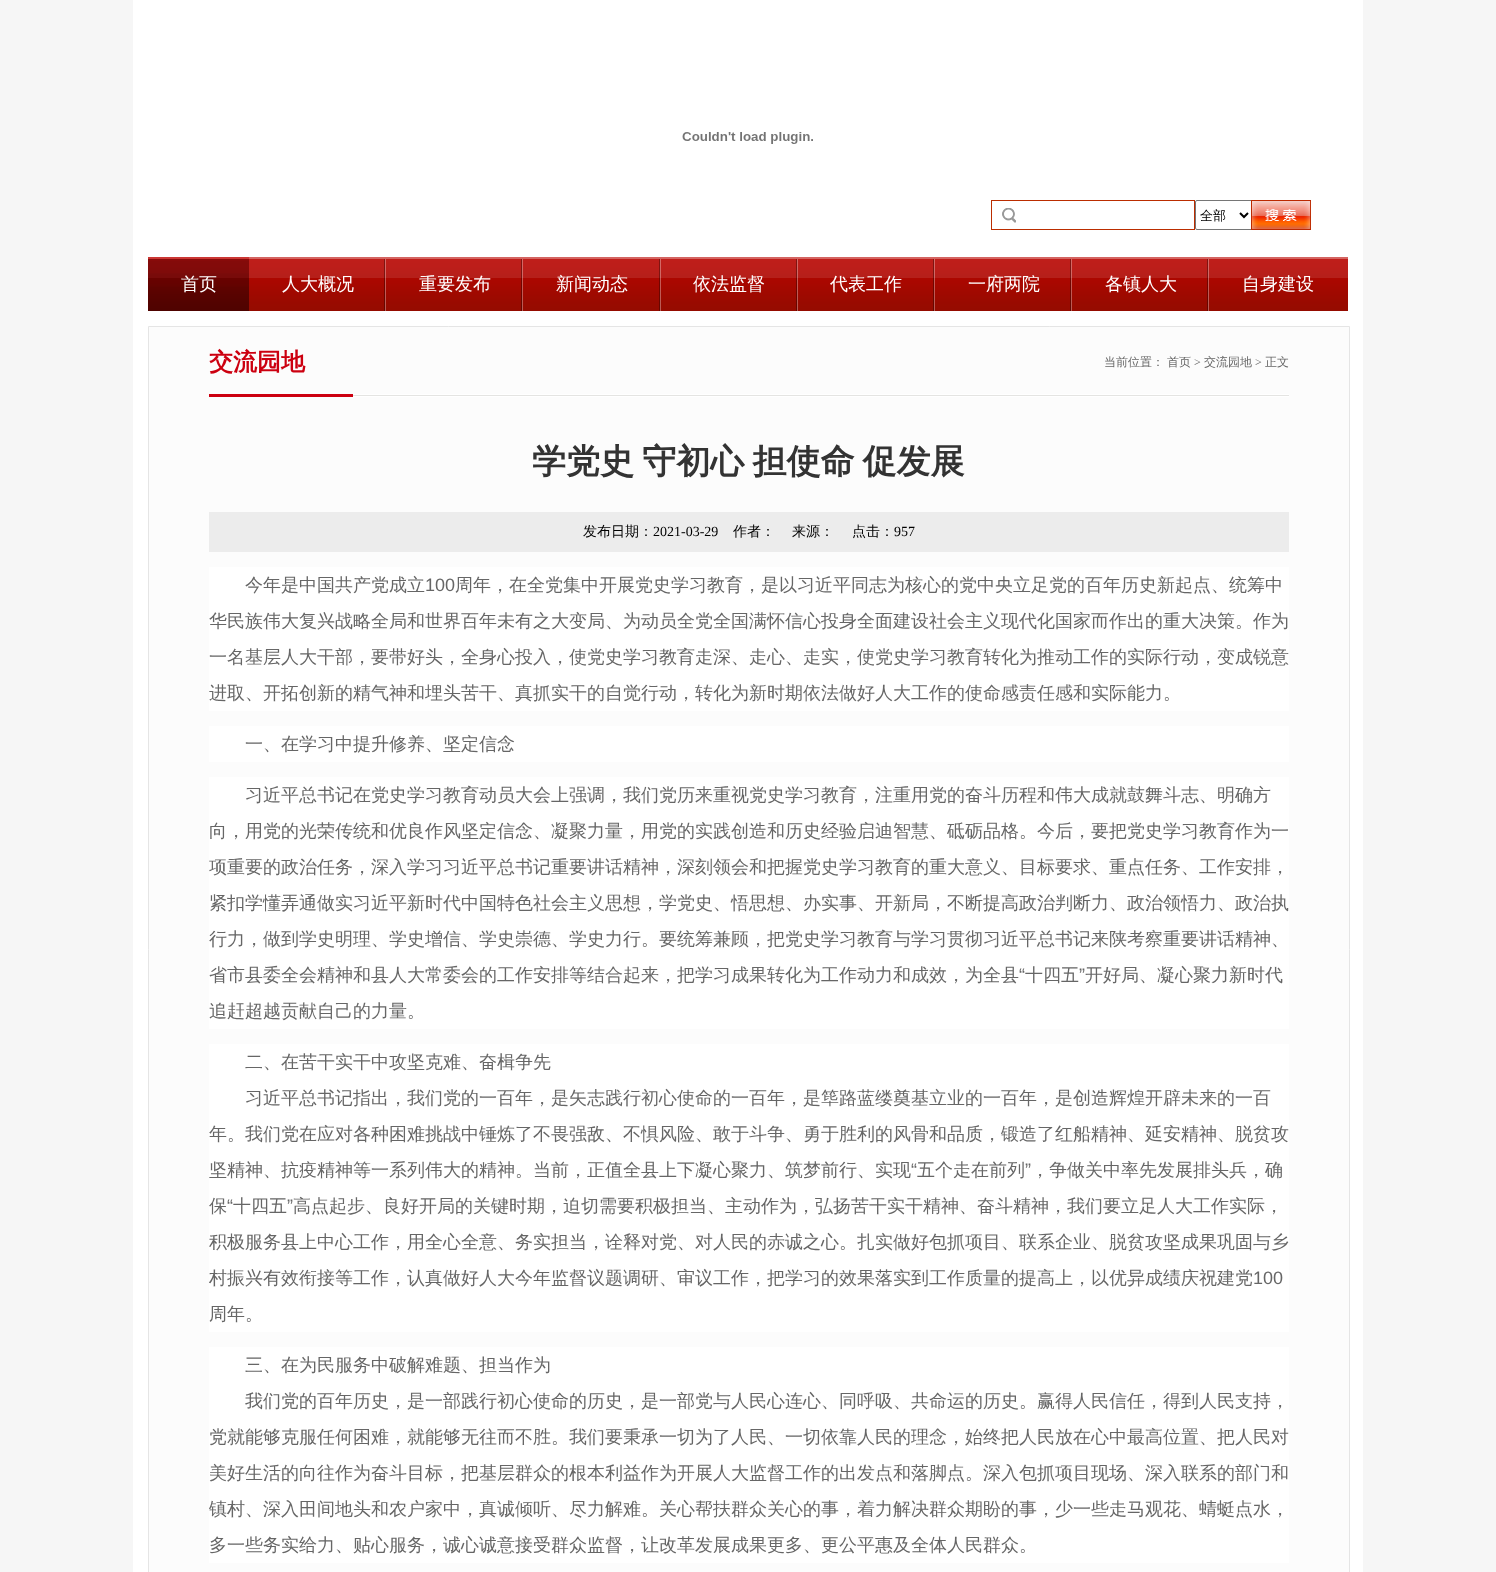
(async () => {
  const canvas = document.querySelector("canvas");
  canvas.width = 1496;
  canvas.height = 1572;
  const ctx = canvas.getContext("2d");
  ctx.miterLimit = 4;
  ctx.fontKerning = "normal";
  async function loadImage(src) {
    const img = new Image();
    img.src = src;
    await img.decode();
    return img;
  }
  let path;

  ctx.fillStyle = "#f6f6f6";
  ctx.fillRect(0, 0, 1496, 1572);
  ctx.fillStyle = "#ffffff";
  ctx.fillRect(133, 0, 1230, 1572);
  ctx.drawImage(await loadImage("img/1.png"), 682, 132, 131, 12);
  ctx.drawImage(await loadImage("img/2.png"), 1002, 208, 14, 15);
  ctx.strokeStyle = "#bb2d00";
  ctx.strokeRect(991.5, 200.5, 203, 29);
  ctx.beginPath();
  ctx.roundRect(1195.5, 200.5, 57, 29, 1.5);
  ctx.strokeStyle = "#767676";
  ctx.stroke();
  path = new Path2D("M1240 213L1244 217L1248 213");
  ctx.strokeStyle = "#000000";
  ctx.lineWidth = 2;
  ctx.stroke(path);
  ctx.drawImage(await loadImage("img/3.png"), 1251, 200, 60, 30);
  ctx.drawImage(await loadImage("img/4.png"), 249, 257, 1099, 54);
  ctx.drawImage(await loadImage("img/5.png"), 148, 257, 101, 54);
  ctx.drawImage(await loadImage("img/6.png"), 384, 259, 2, 52);
  ctx.drawImage(await loadImage("img/6.png"), 521, 259, 2, 52);
  ctx.drawImage(await loadImage("img/6.png"), 659, 259, 2, 52);
  ctx.drawImage(await loadImage("img/6.png"), 796, 259, 2, 52);
  ctx.drawImage(await loadImage("img/6.png"), 933, 259, 2, 52);
  ctx.drawImage(await loadImage("img/6.png"), 1070, 259, 2, 52);
  ctx.drawImage(await loadImage("img/6.png"), 1207, 259, 2, 52);
  ctx.fillStyle = "#fcfcfc";
  ctx.beginPath();
  ctx.rect(148.5, 326.5, 1201, 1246);
  ctx.fill();
  ctx.strokeStyle = "#e5e5e5";
  ctx.lineWidth = 1;
  ctx.stroke();
  ctx.drawImage(await loadImage("img/7.png"), 209, 394, 1080, 3);
  for (const [x, y, w, h, color] of [
    [209, 512, 1080, 40, "#ececec"],
    [209, 567, 1080, 144, "#ffffff"],
    [209, 726, 1080, 36, "#ffffff"],
    [209, 777, 1080, 252, "#ffffff"],
    [209, 1044, 1080, 288, "#ffffff"],
    [209, 1347, 1080, 216, "#ffffff"],
  ]) {
    ctx.fillStyle = color;
    ctx.fillRect(x, y, w, h);
  }
  ctx.font = "500 13px WenQuanYi Zen Hei";
  ctx.fillStyle = "#000000";
  ctx.fillText("全部", 1200, 220);
  ctx.font = "500 18px WenQuanYi Zen Hei";
  ctx.fillStyle = "#ffffff";
  for (const [text, x, y] of [
    ["首页", 181, 290],
    ["人大概况", 282, 290],
    ["重要发布", 419, 290],
    ["新闻动态", 556, 290],
    ["依法监督", 693, 290],
    ["代表工作", 830, 290],
    ["一府两院", 968, 290],
    ["各镇人大", 1105, 290],
    ["自身建设", 1242, 290],
  ]) {
    ctx.fillText(text, x, y);
  }
  ctx.font = "bold 24px WenQuanYi Zen Hei";
  ctx.fillStyle = "#cc0010";
  ctx.fillText("交流园地", 209, 370);
  ctx.font = "500 12px WenQuanYi Zen Hei";
  ctx.fillStyle = "#666666";
  ctx.fillText("当前位置：", 1104, 366);
  ctx.fillText("首页", 1167, 366);
  ctx.font = "12px Liberation Serif";
  ctx.fillText(">", 1194, 366);
  ctx.font = "500 12px WenQuanYi Zen Hei";
  ctx.fillText("交流园地", 1204, 366);
  ctx.font = "12px Liberation Serif";
  ctx.fillText(">", 1255, 366);
  ctx.font = "500 12px WenQuanYi Zen Hei";
  ctx.fillText("正文", 1265, 366);
  ctx.wordSpacing = "-2px";
  ctx.font = "bold 34px WenQuanYi Zen Hei";
  ctx.fillStyle = "#333333";
  ctx.fillText("学党史 守初心 担使命 促发展", 532, 473);
  ctx.wordSpacing = "0px";
  ctx.font = "500 14px WenQuanYi Zen Hei";
  ctx.fillStyle = "#000000";
  ctx.fillText("发布日期：", 583, 536);
  ctx.font = "14px Liberation Serif";
  ctx.fillText("2021-03-29", 653, 536);
  ctx.font = "500 14px WenQuanYi Zen Hei";
  for (const [text, x, y] of [
    ["作者：", 733, 536],
    ["来源：", 792, 536],
    ["点击：", 852, 536],
  ]) {
    ctx.fillText(text, x, y);
  }
  ctx.font = "14px Liberation Serif";
  ctx.fillText("957", 894, 536);
  ctx.font = "500 18px WenQuanYi Zen Hei";
  ctx.fillStyle = "#666666";
  ctx.fillText("今年是中国共产党成立", 245, 591);
  ctx.font = "18px Liberation Sans";
  ctx.fillText("100", 425, 591);
  ctx.font = "500 18px WenQuanYi Zen Hei";
  for (const [text, x, y] of [
    ["周年，在全党集中开展党史学习教育，是以习近平同志为核心的党中央立足党的百年历史新起点、统筹中", 455, 591],
    ["华民族伟大复兴战略全局和世界百年未有之大变局、为动员全党全国满怀信心投身全面建设社会主义现代化国家而作出的重大决策。作为", 209, 627],
    ["一名基层人大干部，要带好头，全身心投入，使党史学习教育走深、走心、走实，使党史学习教育转化为推动工作的实际行动，变成锐意", 209, 663],
    ["进取、开拓创新的精气神和埋头苦干、真抓实干的自觉行动，转化为新时期依法做好人大工作的使命感责任感和实际能力。", 209, 699],
    ["一、在学习中提升修养、坚定信念", 245, 750],
    ["习近平总书记在党史学习教育动员大会上强调，我们党历来重视党史学习教育，注重用党的奋斗历程和伟大成就鼓舞斗志、明确方", 245, 801],
    ["向，用党的光荣传统和优良作风坚定信念、凝聚力量，用党的实践创造和历史经验启迪智慧、砥砺品格。今后，要把党史学习教育作为一", 209, 837],
    ["项重要的政治任务，深入学习习近平总书记重要讲话精神，深刻领会和把握党史学习教育的重大意义、目标要求、重点任务、工作安排，", 209, 873],
    ["紧扣学懂弄通做实习近平新时代中国特色社会主义思想，学党史、悟思想、办实事、开新局，不断提高政治判断力、政治领悟力、政治执", 209, 909],
    ["行力，做到学史明理、学史增信、学史崇德、学史力行。要统筹兼顾，把党史学习教育与学习贯彻习近平总书记来陕考察重要讲话精神、", 209, 945],
    ["省市县委全会精神和县人大常委会的工作安排等结合起来，把学习成果转化为工作动力和成效，为全县", 209, 981],
  ]) {
    ctx.fillText(text, x, y);
  }
  ctx.font = "18px Liberation Sans";
  ctx.fillText("“", 1019, 981);
  ctx.font = "500 18px WenQuanYi Zen Hei";
  ctx.fillText("十四五", 1025, 981);
  ctx.font = "18px Liberation Sans";
  ctx.fillText("”", 1079, 981);
  ctx.font = "500 18px WenQuanYi Zen Hei";
  for (const [text, x, y] of [
    ["开好局、凝心聚力新时代", 1085, 981],
    ["追赶超越贡献自己的力量。", 209, 1017],
    ["二、在苦干实干中攻坚克难、奋楫争先", 245, 1068],
    ["习近平总书记指出，我们党的一百年，是矢志践行初心使命的一百年，是筚路蓝缕奠基立业的一百年，是创造辉煌开辟未来的一百", 245, 1104],
    ["年。我们党在应对各种困难挑战中锤炼了不畏强敌、不惧风险、敢于斗争、勇于胜利的风骨和品质，锻造了红船精神、延安精神、脱贫攻", 209, 1140],
    ["坚精神、抗疫精神等一系列伟大的精神。当前，正值全县上下凝心聚力、筑梦前行、实现", 209, 1176],
  ]) {
    ctx.fillText(text, x, y);
  }
  ctx.font = "18px Liberation Sans";
  ctx.fillText("“", 911, 1176);
  ctx.font = "500 18px WenQuanYi Zen Hei";
  ctx.fillText("五个走在前列", 917, 1176);
  ctx.font = "18px Liberation Sans";
  ctx.fillText("”", 1025, 1176);
  ctx.font = "500 18px WenQuanYi Zen Hei";
  ctx.fillText("，争做关中率先发展排头兵，确", 1031, 1176);
  ctx.fillText("保", 209, 1212);
  ctx.font = "18px Liberation Sans";
  ctx.fillText("“", 227, 1212);
  ctx.font = "500 18px WenQuanYi Zen Hei";
  ctx.fillText("十四五", 233, 1212);
  ctx.font = "18px Liberation Sans";
  ctx.fillText("”", 287, 1212);
  ctx.font = "500 18px WenQuanYi Zen Hei";
  for (const [text, x, y] of [
    ["高点起步、良好开局的关键时期，迫切需要积极担当、主动作为，弘扬苦干实干精神、奋斗精神，我们要立足人大工作实际，", 293, 1212],
    ["积极服务县上中心工作，用全心全意、务实担当，诠释对党、对人民的赤诚之心。扎实做好包抓项目、联系企业、脱贫攻坚成果巩固与乡", 209, 1248],
    ["村振兴有效衔接等工作，认真做好人大今年监督议题调研、审议工作，把学习的效果落实到工作质量的提高上，以优异成绩庆祝建党", 209, 1284],
  ]) {
    ctx.fillText(text, x, y);
  }
  ctx.font = "18px Liberation Sans";
  ctx.fillText("100", 1253, 1284);
  ctx.font = "500 18px WenQuanYi Zen Hei";
  for (const [text, x, y] of [
    ["周年。", 209, 1320],
    ["三、在为民服务中破解难题、担当作为", 245, 1371],
    ["我们党的百年历史，是一部践行初心使命的历史，是一部党与人民心连心、同呼吸、共命运的历史。赢得人民信任，得到人民支持，", 245, 1407],
    ["党就能够克服任何困难，就能够无往而不胜。我们要秉承一切为了人民、一切依靠人民的理念，始终把人民放在心中最高位置、把人民对", 209, 1443],
    ["美好生活的向往作为奋斗目标，把基层群众的根本利益作为开展人大监督工作的出发点和落脚点。深入包抓项目现场、深入联系的部门和", 209, 1479],
    ["镇村、深入田间地头和农户家中，真诚倾听、尽力解难。关心帮扶群众关心的事，着力解决群众期盼的事，少一些走马观花、蜻蜓点水，", 209, 1515],
    ["多一些务实给力、贴心服务，诚心诚意接受群众监督，让改革发展成果更多、更公平惠及全体人民群众。", 209, 1551],
  ]) {
    ctx.fillText(text, x, y);
  }
})();
